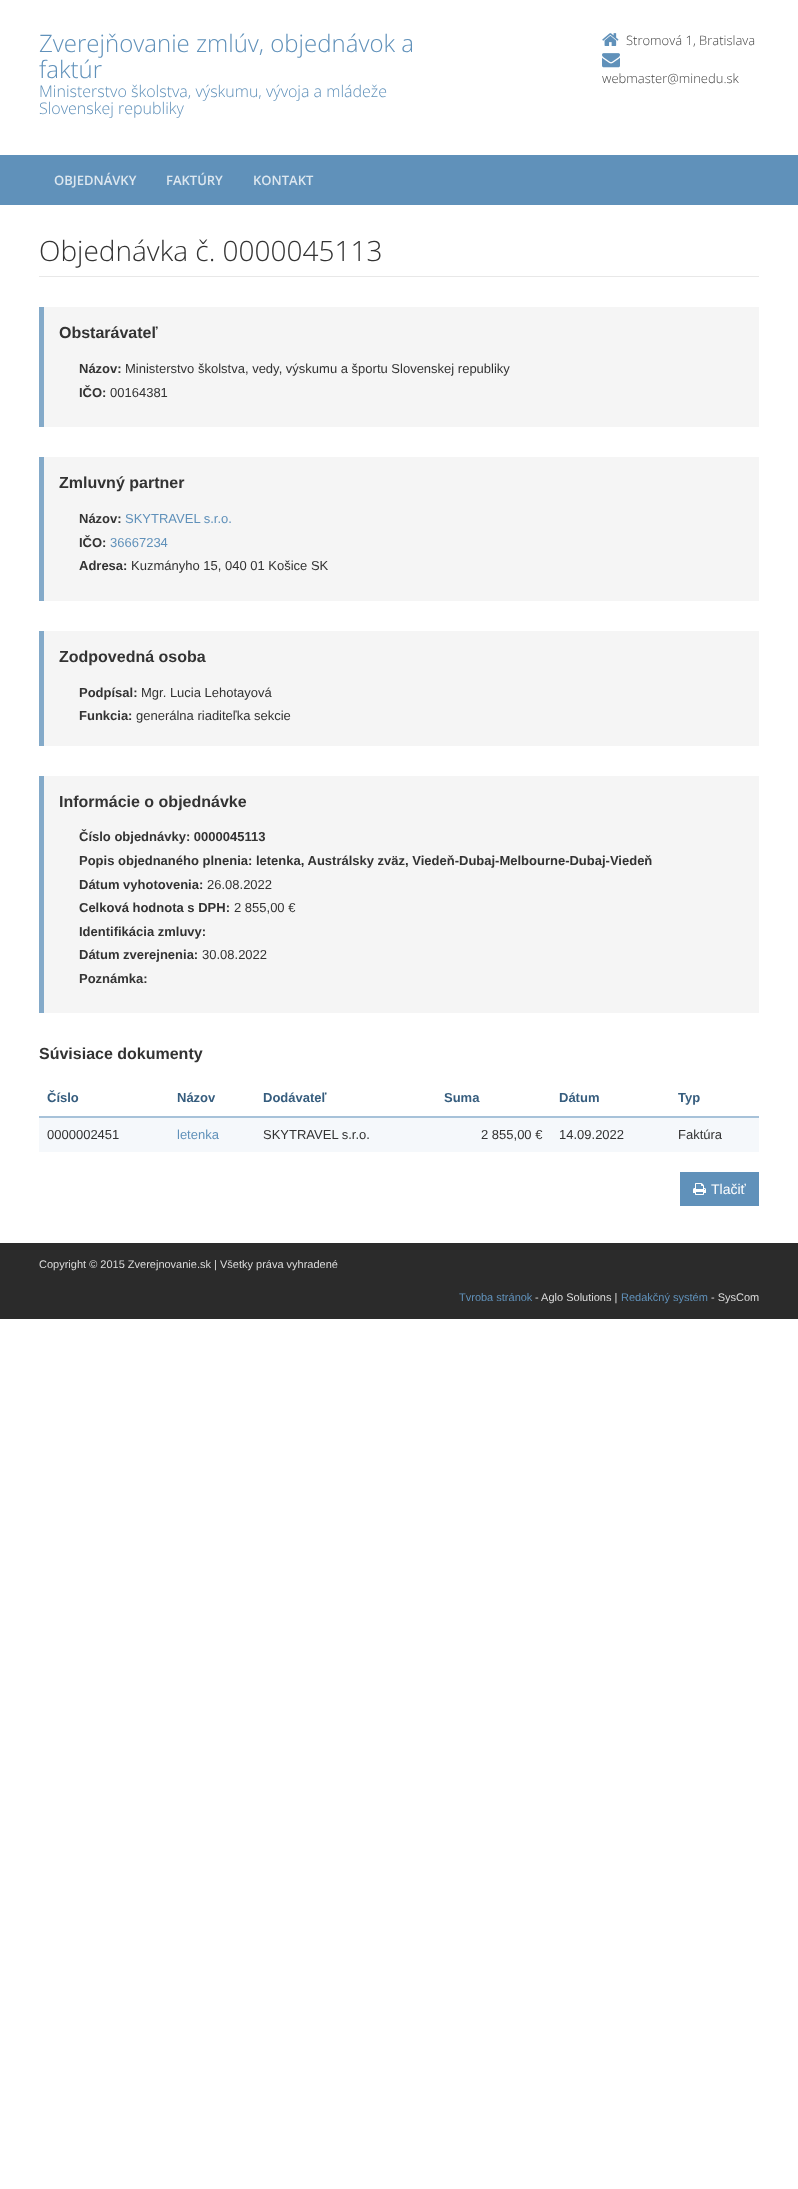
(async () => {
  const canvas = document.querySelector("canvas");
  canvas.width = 798;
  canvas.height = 2189;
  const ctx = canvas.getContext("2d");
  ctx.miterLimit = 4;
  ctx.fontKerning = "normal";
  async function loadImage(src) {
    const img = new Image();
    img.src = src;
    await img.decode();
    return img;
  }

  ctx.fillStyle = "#ffffff";
  ctx.fillRect(0, 0, 798, 2189);
  ctx.drawImage(await loadImage("img/1.png"), 602, 33, 17, 13);
  ctx.drawImage(await loadImage("img/2.png"), 602, 53, 18, 15);
  for (const [x, y, w, h, color] of [
    [0, 155, 798, 50, "#6091ba"],
    [39, 276, 720, 1, "#e8e8e8"],
    [44, 307, 715, 120, "#f5f5f5"],
    [39, 307, 5, 120, "#84aac9"],
    [44, 457, 715, 144, "#f5f5f5"],
    [39, 457, 5, 144, "#84aac9"],
    [44, 631, 715, 115, "#f5f5f5"],
    [39, 631, 5, 115, "#84aac9"],
    [44, 776, 715, 237, "#f5f5f5"],
    [39, 776, 5, 237, "#84aac9"],
    [39, 1116, 720, 2, "#a7c2d9"],
    [39, 1118, 720, 34, "#f5f8fb"],
    [680, 1172, 79, 34, "#6091ba"],
  ]) {
    ctx.fillStyle = color;
    ctx.fillRect(x, y, w, h);
  }
  ctx.drawImage(await loadImage("img/3.png"), 693, 1183, 13, 12);
  ctx.fillStyle = "#2b2b2b";
  ctx.fillRect(0, 1243, 798, 76);
  ctx.font = "300 24px Open Sans";
  ctx.fillStyle = "#6091ba";
  ctx.fillText("Zverejňovanie zmlúv, objednávok a", 39, 52);
  ctx.fillText("faktúr", 39, 78);
  ctx.font = "300 16px Open Sans";
  ctx.fillText("Ministerstvo školstva, výskumu, vývoja a mládeže", 39, 97);
  ctx.fillText("Slovenskej republiky", 39, 114);
  ctx.font = "300 13px Open Sans";
  ctx.fillStyle = "#444444";
  ctx.fillText("Stromová 1, Bratislava", 626, 45);
  ctx.fillText("webmaster@minedu.sk", 602, 83);
  ctx.font = "600 13px Open Sans";
  ctx.fillStyle = "#dce7f0";
  for (const [text, x, y] of [
    ["OBJEDNÁVKY", 54, 185],
    ["FAKTÚRY", 166, 185],
    ["KONTAKT", 253, 185],
  ]) {
    ctx.fillText(text, x, y);
  }
  ctx.font = "300 28px Open Sans";
  ctx.fillStyle = "#333333";
  ctx.fillText("Objednávka č. 0000045113", 39, 261);
  ctx.font = "bold 16px Liberation Sans";
  ctx.fillText("Obstarávateľ", 59, 338);
  ctx.font = "bold 13px Liberation Sans";
  ctx.fillText("Názov:", 79, 373);
  ctx.font = "13px Liberation Sans";
  ctx.fillText("Ministerstvo školstva, vedy, výskumu a športu Slovenskej republiky", 125, 373);
  ctx.font = "bold 13px Liberation Sans";
  ctx.fillText("IČO:", 79, 397);
  ctx.font = "13px Liberation Sans";
  ctx.fillText("00164381", 110, 397);
  ctx.font = "bold 16px Liberation Sans";
  ctx.fillText("Zmluvný partner", 59, 488);
  ctx.font = "bold 13px Liberation Sans";
  ctx.fillText("Názov:", 79, 523);
  ctx.font = "13px Liberation Sans";
  ctx.fillStyle = "#6091ba";
  ctx.fillText("SKYTRAVEL s.r.o.", 125, 523);
  ctx.font = "bold 13px Liberation Sans";
  ctx.fillStyle = "#333333";
  ctx.fillText("IČO:", 79, 547);
  ctx.font = "13px Liberation Sans";
  ctx.fillStyle = "#6091ba";
  ctx.fillText("36667234", 110, 547);
  ctx.font = "bold 13px Liberation Sans";
  ctx.fillStyle = "#333333";
  ctx.fillText("Adresa:", 79, 570);
  ctx.font = "13px Liberation Sans";
  ctx.fillText("Kuzmányho 15, 040 01 Košice SK", 131, 570);
  ctx.font = "bold 16px Liberation Sans";
  ctx.fillText("Zodpovedná osoba", 59, 662);
  ctx.font = "bold 13px Liberation Sans";
  ctx.fillText("Podpísal:", 79, 697);
  ctx.font = "13px Liberation Sans";
  ctx.fillText("Mgr. Lucia Lehotayová", 141, 697);
  ctx.font = "bold 13px Liberation Sans";
  ctx.fillText("Funkcia:", 79, 720);
  ctx.font = "13px Liberation Sans";
  ctx.fillText("generálna riaditeľka sekcie", 136, 720);
  ctx.font = "bold 16px Liberation Sans";
  ctx.fillText("Informácie o objednávke", 59, 807);
  ctx.font = "bold 13px Liberation Sans";
  for (const [text, x, y] of [
    ["Číslo objednávky: 0000045113", 79, 841],
    ["Popis objednaného plnenia: letenka, Austrálsky zväz, Viedeň-Dubaj-Melbourne-Dubaj-Viedeň", 79, 865],
    ["Dátum vyhotovenia:", 79, 889],
  ]) {
    ctx.fillText(text, x, y);
  }
  ctx.font = "13px Liberation Sans";
  ctx.fillText("26.08.2022", 207, 889);
  ctx.font = "bold 13px Liberation Sans";
  ctx.fillText("Celková hodnota s DPH:", 79, 912);
  ctx.font = "13px Liberation Sans";
  ctx.fillText("2 855,00 €", 234, 912);
  ctx.font = "bold 13px Liberation Sans";
  ctx.fillText("Identifikácia zmluvy:", 79, 936);
  ctx.fillText("Dátum zverejnenia:", 79, 959);
  ctx.font = "13px Liberation Sans";
  ctx.fillText("30.08.2022", 202, 959);
  ctx.font = "bold 13px Liberation Sans";
  ctx.fillText("Poznámka:", 79, 983);
  ctx.font = "bold 16px Liberation Sans";
  ctx.fillText("Súvisiace dokumenty", 39, 1059);
  ctx.font = "bold 13px Liberation Sans";
  ctx.fillStyle = "#365d7e";
  for (const [text, x, y] of [
    ["Číslo", 47, 1102],
    ["Názov", 177, 1102],
    ["Dodávateľ", 263, 1102],
    ["Suma", 444, 1102],
    ["Dátum", 559, 1102],
    ["Typ", 678, 1102],
  ]) {
    ctx.fillText(text, x, y);
  }
  ctx.font = "13px Liberation Sans";
  ctx.fillStyle = "#333333";
  ctx.fillText("0000002451", 47, 1139);
  ctx.fillStyle = "#6091ba";
  ctx.fillText("letenka", 177, 1139);
  ctx.fillStyle = "#333333";
  for (const [text, x, y] of [
    ["SKYTRAVEL s.r.o.", 263, 1139],
    ["2 855,00 €", 481, 1139],
    ["14.09.2022", 559, 1139],
    ["Faktúra", 678, 1139],
  ]) {
    ctx.fillText(text, x, y);
  }
  ctx.font = "14px Liberation Sans";
  ctx.fillStyle = "#ffffff";
  ctx.fillText("Tlačiť", 711, 1194);
  ctx.font = "11px Liberation Sans";
  ctx.fillStyle = "#dcdcdc";
  ctx.fillText("Copyright © 2015 Zverejnovanie.sk | Všetky práva vyhradené", 39, 1268);
  ctx.fillStyle = "#6091ba";
  ctx.fillText("Tvroba stránok", 459, 1301);
  ctx.fillStyle = "#dcdcdc";
  ctx.fillText("- Aglo Solutions |", 535, 1301);
  ctx.fillStyle = "#6091ba";
  ctx.fillText("Redakčný systém", 621, 1301);
  ctx.fillStyle = "#dcdcdc";
  ctx.fillText("- SysCom", 711, 1301);
})();
